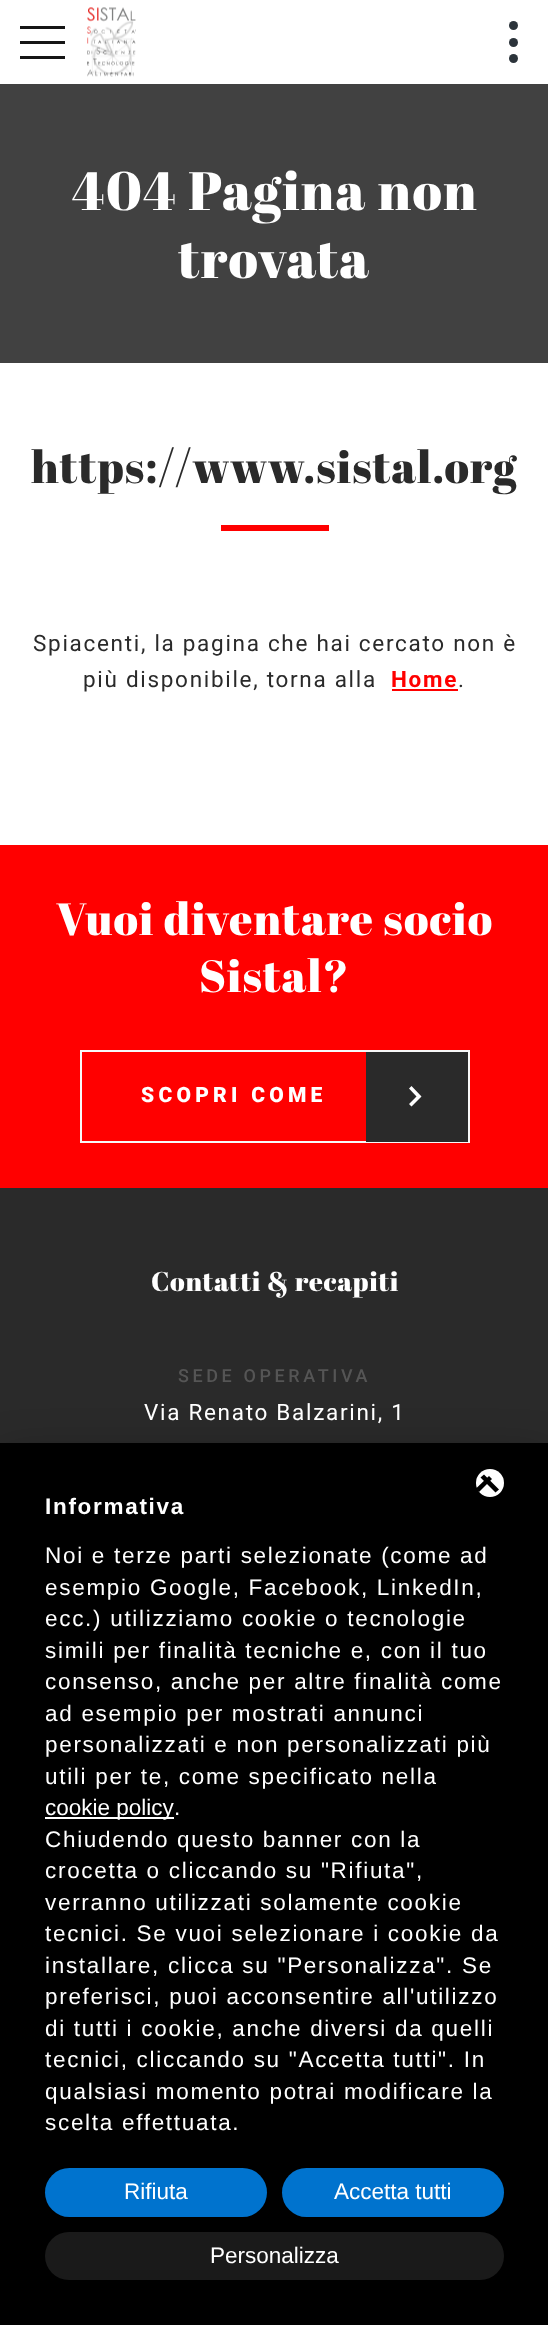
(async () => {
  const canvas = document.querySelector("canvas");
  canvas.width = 548;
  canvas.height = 2325;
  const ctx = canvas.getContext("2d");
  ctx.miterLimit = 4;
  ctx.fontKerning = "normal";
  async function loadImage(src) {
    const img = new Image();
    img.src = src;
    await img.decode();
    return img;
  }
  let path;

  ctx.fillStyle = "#ffffff";
  ctx.fillRect(0, 0, 548, 2325);
  for (const [x, y, w, h, color] of [
    [20, 41, 45, 3, "#151515"],
    [20, 26, 45, 3, "#151515"],
    [20, 56, 45, 3, "#151515"],
  ]) {
    ctx.fillStyle = color;
    ctx.fillRect(x, y, w, h);
  }
  ctx.drawImage(await loadImage("img/1.png"), 87, 7, 49, 70);
  ctx.fillStyle = "#2c343b";
  ctx.beginPath();
  ctx.arc(513.5, 42.5, 4.5, 0, Math.PI * 2);
  ctx.fill();
  ctx.beginPath();
  ctx.arc(513.5, 25.5, 4.5, 0, Math.PI * 2);
  ctx.fill();
  ctx.beginPath();
  ctx.arc(513.5, 58.5, 4.5, 0, Math.PI * 2);
  ctx.fill();
  for (const [x, y, w, h, color] of [
    [0, 84, 548, 279, "#414141"],
    [221, 525, 108, 6, "#ff0000"],
    [392, 689, 66, 2, "#ff0000"],
    [0, 845, 548, 343, "#ff0000"],
  ]) {
    ctx.fillStyle = color;
    ctx.fillRect(x, y, w, h);
  }
  ctx.strokeStyle = "#f8f8f8";
  ctx.lineWidth = 2;
  ctx.strokeRect(81, 1051, 388, 91);
  ctx.fillStyle = "#2a2a2a";
  ctx.fillRect(366, 1052, 102, 90);
  ctx.fillStyle = "#ffffff";
  path = new Path2D("M409 1104L416.5 1096.5L409 1088.5L411.5 1086L421.5 1096.5L411.5 1106.5Z");
  ctx.fill(path);
  ctx.fillStyle = "#2a2a2a";
  ctx.fillRect(0, 1188, 548, 255);
  ctx.fillStyle = "rgba(0, 0, 0, 0.33)";
  ctx.filter = "blur(22.5px)";
  ctx.beginPath();
  ctx.rect(0, 1458, 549, 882);
  ctx.fill();
  ctx.filter = "none";
  ctx.fillStyle = "#000000";
  ctx.fillRect(0, 1443, 548, 882);
  ctx.fillStyle = "#ffffff";
  ctx.beginPath();
  ctx.arc(490, 1483, 14, 0, Math.PI * 2);
  ctx.fill();
  ctx.fillStyle = "#000000";
  path = new Path2D("M480.5 1477.5L484 1474.5L499 1489.5L495.5 1492.5Z");
  ctx.fill(path);
  path = new Path2D("M489 1476L492 1479L479 1492L476 1488.5Z");
  ctx.fill(path);
  ctx.fillStyle = "#ffffff";
  ctx.fillRect(45, 1817, 129, 2);
  ctx.fillStyle = "#0073ce";
  ctx.beginPath();
  ctx.roundRect(45, 2168, 222, 49, 24.5);
  ctx.fill();
  ctx.beginPath();
  ctx.roundRect(282, 2168, 222, 49, 24.5);
  ctx.fill();
  ctx.fillStyle = "#1a1a1a";
  ctx.beginPath();
  ctx.roundRect(45, 2232, 459, 48, 24);
  ctx.fill();
  ctx.letterSpacing = "1.4px";
  ctx.font = "54px Abril Fatface";
  ctx.fillStyle = "#ffffff";
  ctx.fillText("404 Pagina non", 72, 210);
  ctx.fillText("trovata", 178, 278);
  ctx.letterSpacing = "1.1px";
  ctx.font = "45px Abril Fatface";
  ctx.fillStyle = "#2a2a2a";
  ctx.fillText("https://www.sistal.org", 31, 483);
  ctx.letterSpacing = "1.7px";
  ctx.font = "22.5px Roboto";
  ctx.fillText("Spiacenti, la pagina che hai cercato non è", 33, 651);
  ctx.fillText("più disponibile, torna alla", 83, 687);
  ctx.font = "bold 22.5px Roboto";
  ctx.fillStyle = "#ff0000";
  ctx.fillText("Home", 391, 687);
  ctx.font = "22.5px Roboto";
  ctx.fillStyle = "#2a2a2a";
  ctx.fillText(".", 458, 687);
  ctx.letterSpacing = "1.1px";
  ctx.font = "45px Abril Fatface";
  ctx.fillStyle = "#ffffff";
  ctx.fillText("Vuoi diventare socio", 56, 935);
  ctx.fillText("Sistal?", 199, 992);
  ctx.letterSpacing = "4.25px";
  ctx.font = "900 21px Roboto";
  ctx.fillText("SCOPRI COME", 141, 1102);
  ctx.letterSpacing = "0.7px";
  ctx.font = "27px Abril Fatface";
  ctx.fillText("Contatti & recapiti", 151, 1291);
  ctx.letterSpacing = "3.6px";
  ctx.font = "500 18px Roboto";
  ctx.fillStyle = "#555555";
  ctx.fillText("SEDE OPERATIVA", 178, 1382);
  ctx.letterSpacing = "1.7px";
  ctx.font = "22.5px Roboto";
  ctx.fillStyle = "#ffffff";
  ctx.fillText("Via Renato Balzarini, 1", 144, 1420);
  ctx.font = "bold 22.5px Liberation Sans";
  ctx.fillText("Informativa", 45, 1514);
  ctx.font = "22.5px Liberation Sans";
  for (const [text, x, y] of [
    ["Noi e terze parti selezionate (come ad", 45, 1563],
    ["esempio Google, Facebook, LinkedIn,", 45, 1595],
    ["ecc.) utilizziamo cookie o tecnologie", 45, 1626],
    ["simili per finalità tecniche e, con il tuo", 45, 1658],
    ["consenso, anche per altre finalità come", 45, 1689],
    ["ad esempio per mostrati annunci", 45, 1721],
    ["personalizzati e non personalizzati più", 45, 1752],
    ["utili per te, come specificato nella", 45, 1784],
  ]) {
    ctx.fillText(text, x, y);
  }
  ctx.letterSpacing = "0px";
  ctx.fillText("cookie policy", 45, 1815);
  ctx.letterSpacing = "1.7px";
  for (const [text, x, y] of [
    [".", 174, 1815],
    ["Chiudendo questo banner con la", 45, 1847],
    ["crocetta o cliccando su \"Rifiuta\",", 45, 1878],
    ["verranno utilizzati solamente cookie", 45, 1910],
    ["tecnici. Se vuoi selezionare i cookie da", 45, 1941],
    ["installare, clicca su \"Personalizza\". Se", 45, 1973],
    ["preferisci, puoi acconsentire all'utilizzo", 45, 2004],
    ["di tutti i cookie, anche diversi da quelli", 45, 2036],
    ["tecnici, cliccando su \"Accetta tutti\". In", 45, 2067],
    ["qualsiasi momento potrai modificare la", 45, 2099],
    ["scelta effettuata.", 45, 2130],
  ]) {
    ctx.fillText(text, x, y);
  }
  ctx.letterSpacing = "0px";
  for (const [text, x, y] of [
    ["Rifiuta", 124, 2199],
    ["Accetta tutti", 334, 2199],
    ["Personalizza", 210, 2263],
  ]) {
    ctx.fillText(text, x, y);
  }
})();
